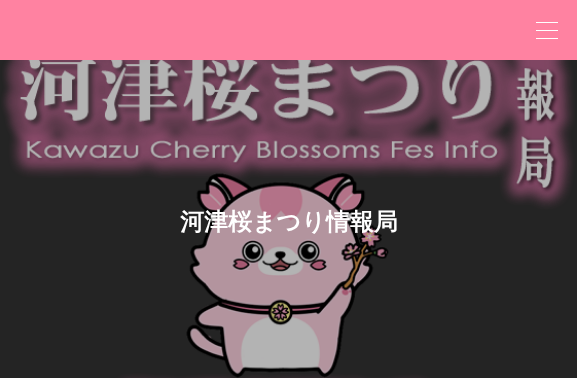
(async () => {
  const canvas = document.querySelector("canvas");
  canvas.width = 577;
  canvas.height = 378;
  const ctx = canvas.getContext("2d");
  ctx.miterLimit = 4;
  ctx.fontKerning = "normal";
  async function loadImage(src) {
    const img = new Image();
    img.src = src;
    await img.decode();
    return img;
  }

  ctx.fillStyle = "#242424";
  ctx.fillRect(0, 0, 577, 378);
  for (const [x, y, w, h, color] of [
    [0, 0, 577, 60, "#ff82a1"],
    [536, 22, 22, 1, "#ffffff"],
    [536, 30, 22, 1, "#ffffff"],
    [536, 38, 22, 1, "#ffffff"],
  ]) {
    ctx.fillStyle = color;
    ctx.fillRect(x, y, w, h);
  }
  ctx.drawImage(await loadImage("img/1.png"), 1, 60, 574, 318);
  ctx.font = "bold 24px WenQuanYi Zen Hei";
  ctx.fillText("河津桜まつり情報局", 180, 230);
})();
